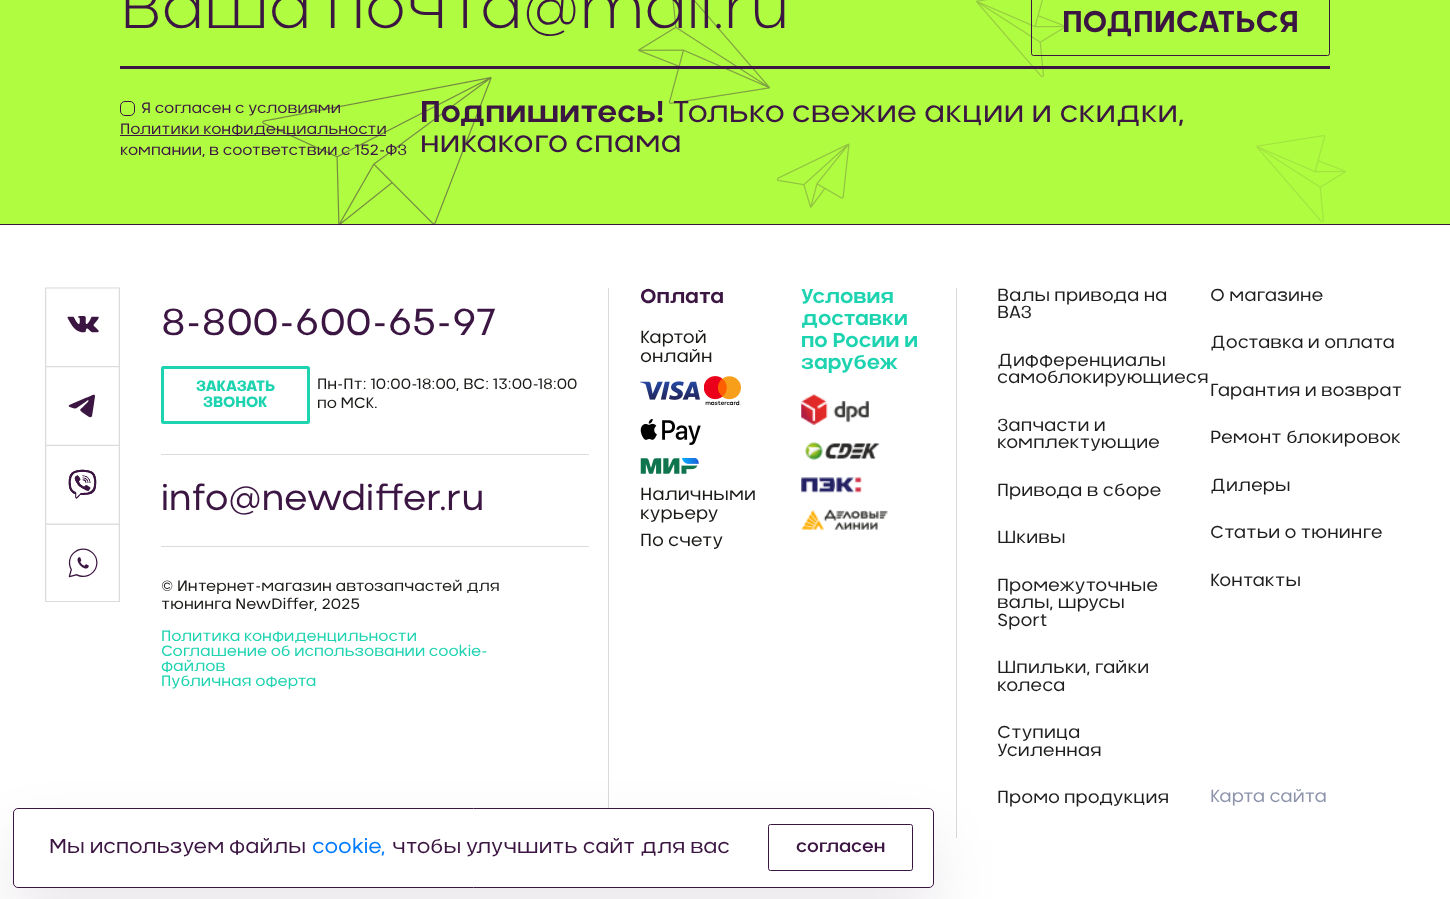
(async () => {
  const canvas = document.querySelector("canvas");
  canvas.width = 1450;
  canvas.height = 899;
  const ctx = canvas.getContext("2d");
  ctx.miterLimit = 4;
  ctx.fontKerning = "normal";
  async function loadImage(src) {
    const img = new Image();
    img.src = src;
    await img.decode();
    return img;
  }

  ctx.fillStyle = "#ffffff";
  ctx.fillRect(0, 0, 1450, 899);
  ctx.fillStyle = "#affc41";
  ctx.fillRect(0, 0, 1450, 224);
  ctx.drawImage(await loadImage("img/1.png"), 262, 0, 1084, 224);
  ctx.fillStyle = "#3c1642";
  ctx.fillRect(120, 66, 1210, 3);
  ctx.beginPath();
  ctx.roundRect(1031.5, -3.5, 298, 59, 2);
  ctx.strokeStyle = "#3c1642";
  ctx.stroke();
  ctx.beginPath();
  ctx.roundRect(120.5, 101.5, 14, 14, 4.5);
  ctx.stroke();
  ctx.fillRect(120, 135, 266, 1);
  ctx.fillRect(0, 224, 1450, 1);
  ctx.drawImage(await loadImage("img/2.png"), 45, 287, 75, 80);
  ctx.drawImage(await loadImage("img/3.png"), 45, 367, 75, 79);
  ctx.drawImage(await loadImage("img/4.png"), 45, 446, 75, 79);
  ctx.drawImage(await loadImage("img/5.png"), 45, 524, 75, 78);
  ctx.fillStyle = "#dbdbdb";
  ctx.fillRect(608, 288, 1, 520);
  ctx.fillRect(161, 454, 428, 1);
  ctx.beginPath();
  ctx.roundRect(162.5, 367.5, 146, 55, 1);
  ctx.strokeStyle = "#1dd3b0";
  ctx.lineWidth = 3;
  ctx.stroke();
  ctx.fillRect(161, 546, 428, 1);
  ctx.fillRect(956, 288, 1, 550);
  ctx.drawImage(await loadImage("img/6.png"), 640, 381, 60, 19);
  ctx.drawImage(await loadImage("img/7.png"), 704, 376, 37, 30);
  ctx.drawImage(await loadImage("img/8.png"), 640, 419, 61, 26);
  ctx.drawImage(await loadImage("img/9.png"), 640, 458, 59, 16);
  ctx.drawImage(await loadImage("img/10.png"), 801, 394, 68, 31);
  ctx.drawImage(await loadImage("img/11.png"), 805, 442, 75, 18);
  ctx.drawImage(await loadImage("img/12.png"), 801, 477, 61, 16);
  ctx.drawImage(await loadImage("img/13.png"), 801, 509, 87, 21);
  ctx.fillStyle = "rgba(60, 22, 66, 0.1)";
  ctx.filter = "blur(30px)";
  ctx.beginPath();
  ctx.roundRect(13, 838, 921, 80, 5);
  ctx.fill();
  ctx.filter = "none";
  ctx.fillStyle = "#ffffff";
  ctx.beginPath();
  ctx.roundRect(13.5, 808.5, 920, 79, 4.5);
  ctx.fill();
  ctx.strokeStyle = "#3c1642";
  ctx.lineWidth = 1;
  ctx.stroke();
  ctx.beginPath();
  ctx.roundRect(768.5, 824.5, 144, 46, 2);
  ctx.stroke();
  ctx.font = "300 60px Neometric";
  ctx.fillStyle = "#3c1642";
  ctx.fillText("Ваша почта@mail.ru", 120, 28);
  ctx.font = "bold 30px Neometric";
  ctx.fillText("ПОДПИСАТЬСЯ", 1062, 32);
  ctx.font = "15px Neometric";
  for (const [text, x, y] of [
    ["Я согласен с условиями", 141, 113],
    ["Политики конфиденциальности", 120, 134],
    ["компании, в соответствии с 152-ФЗ", 120, 155],
  ]) {
    ctx.fillText(text, x, y);
  }
  ctx.font = "bold 30px Neometric";
  ctx.fillText("Подпишитесь!", 420, 122);
  ctx.font = "30px Neometric";
  ctx.fillText("Только свежие акции и скидки,", 672, 122);
  ctx.fillText("никакого спама", 420, 152);
  ctx.font = "37.5px Neometric";
  ctx.fillText("8-800-600-65-97", 161, 335);
  ctx.font = "800 15px Neometric";
  ctx.fillStyle = "#1dd3b0";
  ctx.fillText("ЗАКАЗАТЬ", 196, 391);
  ctx.fillText("ЗВОНОК", 203, 407);
  ctx.font = "15px Neometric";
  ctx.fillStyle = "#181a16";
  ctx.fillText("Пн-Пт: 10:00-18:00, ВС: 13:00-18:00", 317, 389);
  ctx.fillText("по МСК.", 317, 408);
  ctx.font = "35px Neometric";
  ctx.fillStyle = "#3c1642";
  ctx.fillText("info@newdiffer.ru", 161, 510);
  ctx.font = "15px Neometric";
  ctx.fillStyle = "#181a16";
  ctx.fillText("© Интернет-магазин автозапчастей для", 161, 591);
  ctx.fillText("тюнинга NewDiffer, 2025", 161, 609);
  ctx.fillStyle = "#1dd3b0";
  for (const [text, x, y] of [
    ["Политика конфиденцильности", 161, 641],
    ["Соглашение об использовании cookie-", 161, 656],
    ["файлов", 161, 671],
    ["Публичная оферта", 161, 686],
  ]) {
    ctx.fillText(text, x, y);
  }
  ctx.font = "bold 20px Neometric";
  ctx.fillStyle = "#3c1642";
  ctx.fillText("Оплата", 640, 303);
  ctx.font = "17.5px Neometric";
  ctx.fillStyle = "#181a16";
  for (const [text, x, y] of [
    ["Картой", 640, 343],
    ["онлайн", 640, 362],
    ["Наличными", 640, 500],
    ["курьеру", 640, 519],
    ["По счету", 640, 546],
  ]) {
    ctx.fillText(text, x, y);
  }
  ctx.font = "bold 20px Neometric";
  ctx.fillStyle = "#1dd3b0";
  for (const [text, x, y] of [
    ["Условия", 801, 303],
    ["доставки", 801, 325],
    ["по Росии и", 801, 347],
    ["зарубеж", 801, 369],
  ]) {
    ctx.fillText(text, x, y);
  }
  ctx.font = "17.5px Neometric";
  ctx.fillStyle = "#1e1e1e";
  for (const [text, x, y] of [
    ["Валы привода на", 997, 301],
    ["ВАЗ", 997, 318],
    ["Дифференциалы", 997, 366],
    ["самоблокирующиеся", 997, 383],
    ["Запчасти и", 997, 431],
    ["комплектующие", 997, 448],
    ["Привода в сборе", 997, 496],
    ["Шкивы", 997, 543],
    ["Промежуточные", 997, 591],
    ["валы, шрусы", 997, 608],
    ["Sport", 997, 626],
    ["Шпильки, гайки", 997, 673],
    ["колеса", 997, 691],
    ["Ступица", 997, 738],
    ["Усиленная", 997, 756],
    ["Промо продукция", 997, 803],
    ["О магазине", 1210, 301],
    ["Доставка и оплата", 1210, 348],
    ["Гарантия и возврат", 1210, 396],
    ["Ремонт блокировок", 1210, 443],
    ["Дилеры", 1210, 491],
    ["Статьи о тюнинге", 1210, 538],
    ["Контакты", 1210, 586],
  ]) {
    ctx.fillText(text, x, y);
  }
  ctx.fillStyle = "#8d94ab";
  ctx.fillText("Карта сайта", 1210, 802);
  ctx.font = "20px Neometric";
  ctx.fillStyle = "#3c1642";
  ctx.fillText("Мы используем файлы", 49, 853);
  ctx.fillStyle = "#007bff";
  ctx.fillText("cookie,", 312, 853);
  ctx.fillStyle = "#3c1642";
  ctx.fillText("чтобы улучшить сайт для вас", 392, 853);
  ctx.font = "500 17.5px Neometric";
  ctx.fillText("согласен", 796, 852);
})();
